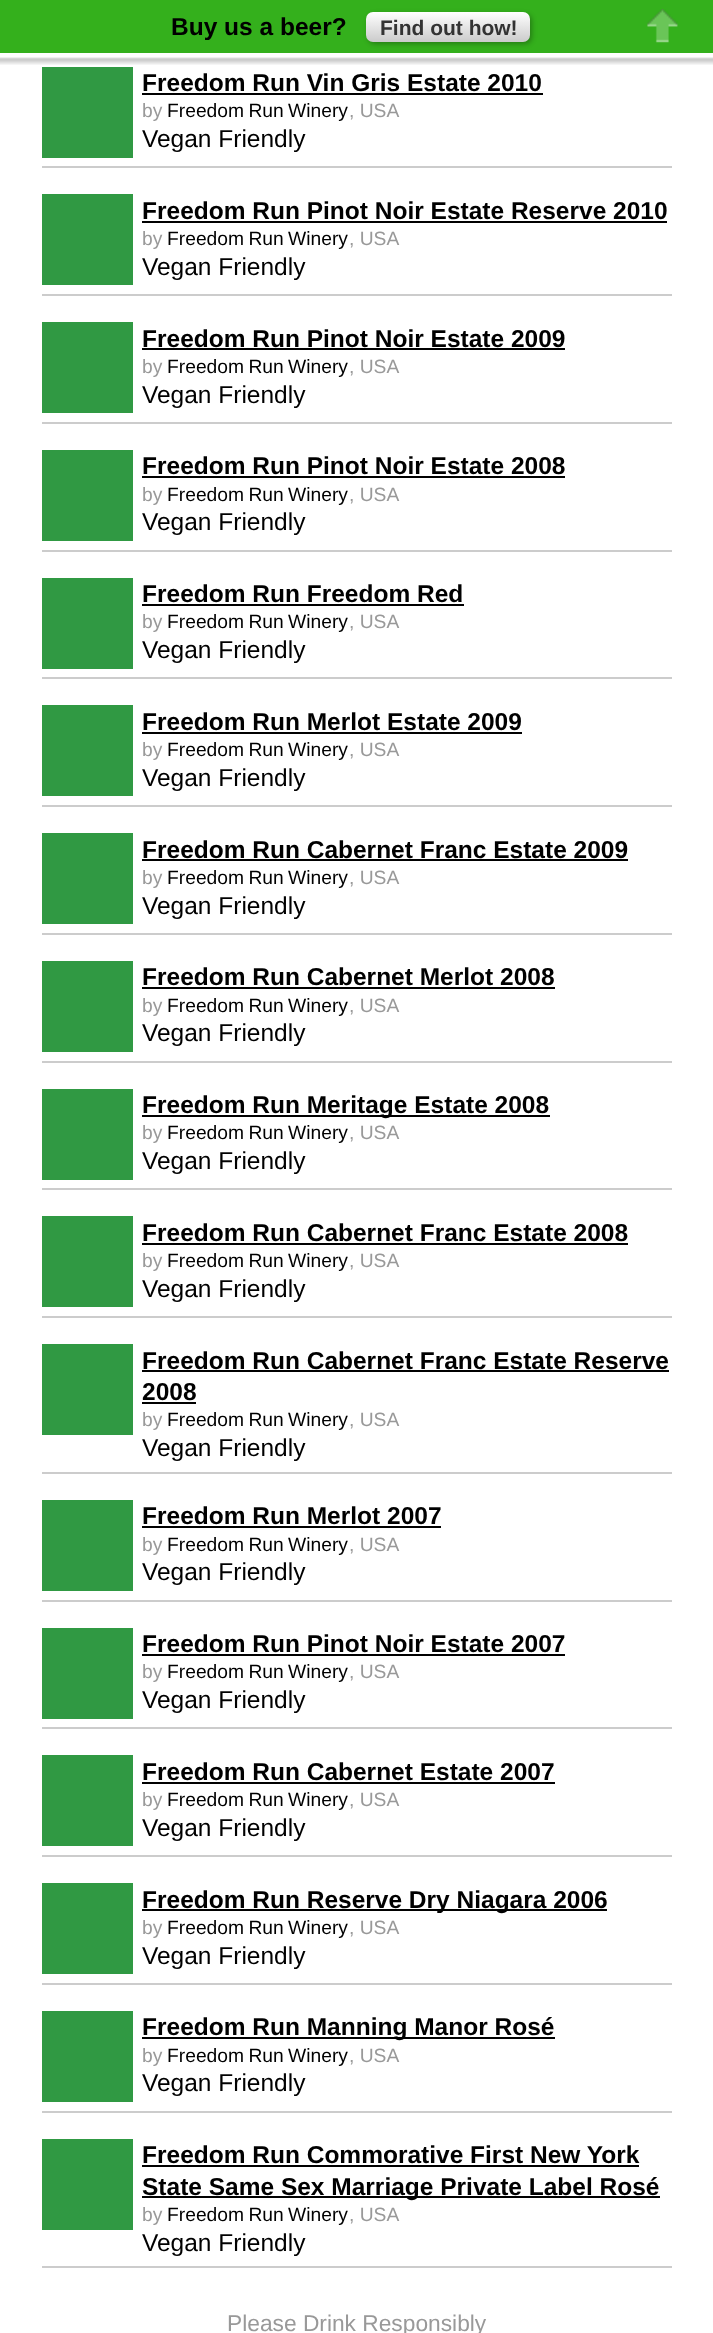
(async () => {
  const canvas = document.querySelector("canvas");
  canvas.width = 713;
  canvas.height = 2333;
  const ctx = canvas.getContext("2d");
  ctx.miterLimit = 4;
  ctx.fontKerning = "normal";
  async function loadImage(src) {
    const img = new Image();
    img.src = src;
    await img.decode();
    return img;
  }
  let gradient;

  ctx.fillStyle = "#ffffff";
  ctx.fillRect(0, 0, 713, 2333);
  ctx.fillStyle = "#34b01c";
  ctx.fillRect(0, 0, 713, 53);
  ctx.fillStyle = "rgba(0, 0, 0, 0.28)";
  ctx.filter = "blur(2.5px)";
  ctx.beginPath();
  ctx.roundRect(368, 14, 164, 30, 7);
  ctx.fill();
  ctx.filter = "none";
  gradient = ctx.createLinearGradient(448, 12, 448, 42);
  gradient.addColorStop(0, "#ffffff");
  gradient.addColorStop(1, "#cbcbcb");
  ctx.fillStyle = gradient;
  ctx.beginPath();
  ctx.roundRect(366, 12, 164, 30, 7);
  ctx.fill();
  ctx.drawImage(await loadImage("img/1.png"), 647, 9, 31, 34);
  ctx.drawImage(await loadImage("img/2.png"), 0, 57, 713, 8);
  for (const [x, y, w, h, color] of [
    [42, 166, 630, 2, "#cccccc"],
    [42, 67, 91, 91, "#309943"],
    [142, 93, 401, 2, "#000000"],
    [42, 294, 630, 2, "#cccccc"],
    [42, 194, 91, 91, "#309943"],
    [142, 221, 525, 2, "#000000"],
    [42, 422, 630, 2, "#cccccc"],
    [42, 322, 91, 91, "#309943"],
    [142, 348, 423, 2, "#000000"],
    [42, 550, 630, 2, "#cccccc"],
    [42, 450, 91, 91, "#309943"],
    [142, 476, 423, 2, "#000000"],
    [42, 677, 630, 2, "#cccccc"],
    [42, 578, 91, 91, "#309943"],
    [142, 604, 322, 2, "#000000"],
    [42, 805, 630, 2, "#cccccc"],
    [42, 705, 91, 91, "#309943"],
    [142, 732, 380, 2, "#000000"],
    [42, 933, 630, 2, "#cccccc"],
    [42, 833, 91, 91, "#309943"],
    [142, 859, 486, 2, "#000000"],
    [42, 1061, 630, 2, "#cccccc"],
    [42, 961, 91, 91, "#309943"],
    [142, 987, 413, 2, "#000000"],
    [42, 1188, 630, 2, "#cccccc"],
    [42, 1089, 91, 91, "#309943"],
    [142, 1115, 408, 2, "#000000"],
    [42, 1316, 630, 2, "#cccccc"],
    [42, 1216, 91, 91, "#309943"],
    [142, 1243, 486, 2, "#000000"],
    [42, 1472, 630, 2, "#cccccc"],
    [42, 1344, 91, 91, "#309943"],
    [142, 1370, 527, 2, "#000000"],
    [142, 1402, 54, 2, "#000000"],
    [42, 1600, 630, 2, "#cccccc"],
    [42, 1500, 91, 91, "#309943"],
    [142, 1526, 299, 2, "#000000"],
    [42, 1727, 630, 2, "#cccccc"],
    [42, 1628, 91, 91, "#309943"],
    [142, 1654, 423, 2, "#000000"],
    [42, 1855, 630, 2, "#cccccc"],
    [42, 1755, 91, 91, "#309943"],
    [142, 1782, 413, 2, "#000000"],
    [42, 1983, 630, 2, "#cccccc"],
    [42, 1883, 91, 91, "#309943"],
    [142, 1909, 465, 2, "#000000"],
    [42, 2111, 630, 2, "#cccccc"],
    [42, 2011, 91, 91, "#309943"],
    [142, 2037, 413, 2, "#000000"],
    [42, 2266, 630, 2, "#cccccc"],
    [42, 2139, 91, 91, "#309943"],
    [142, 2165, 497, 2, "#000000"],
    [142, 2196, 518, 2, "#000000"],
  ]) {
    ctx.fillStyle = color;
    ctx.fillRect(x, y, w, h);
  }
  ctx.font = "bold 24.5px Liberation Sans";
  ctx.fillText("Buy us a beer?", 171, 35);
  ctx.font = "bold 21px Liberation Sans";
  ctx.fillStyle = "#333333";
  ctx.fillText("Find out how!", 380, 35);
  ctx.font = "bold 24.5px Liberation Sans";
  ctx.fillStyle = "#000000";
  ctx.fillText("Freedom Run Vin Gris Estate 2010", 142, 91);
  ctx.font = "19.25px Liberation Sans";
  ctx.fillStyle = "#999999";
  ctx.fillText("by", 142, 117);
  ctx.wordSpacing = "-1px";
  ctx.fillStyle = "#000000";
  ctx.fillText("Freedom Run Winery", 167, 117);
  ctx.wordSpacing = "0px";
  ctx.fillStyle = "#999999";
  ctx.fillText(", USA", 349, 117);
  ctx.font = "24.5px Liberation Sans";
  ctx.fillStyle = "#000000";
  ctx.fillText("Vegan Friendly", 142, 147);
  ctx.font = "bold 24.5px Liberation Sans";
  ctx.fillText("Freedom Run Pinot Noir Estate Reserve 2010", 142, 219);
  ctx.font = "19.25px Liberation Sans";
  ctx.fillStyle = "#999999";
  ctx.fillText("by", 142, 245);
  ctx.wordSpacing = "-1px";
  ctx.fillStyle = "#000000";
  ctx.fillText("Freedom Run Winery", 167, 245);
  ctx.wordSpacing = "0px";
  ctx.fillStyle = "#999999";
  ctx.fillText(", USA", 349, 245);
  ctx.font = "24.5px Liberation Sans";
  ctx.fillStyle = "#000000";
  ctx.fillText("Vegan Friendly", 142, 275);
  ctx.font = "bold 24.5px Liberation Sans";
  ctx.fillText("Freedom Run Pinot Noir Estate 2009", 142, 347);
  ctx.font = "19.25px Liberation Sans";
  ctx.fillStyle = "#999999";
  ctx.fillText("by", 142, 373);
  ctx.wordSpacing = "-1px";
  ctx.fillStyle = "#000000";
  ctx.fillText("Freedom Run Winery", 167, 373);
  ctx.wordSpacing = "0px";
  ctx.fillStyle = "#999999";
  ctx.fillText(", USA", 349, 373);
  ctx.font = "24.5px Liberation Sans";
  ctx.fillStyle = "#000000";
  ctx.fillText("Vegan Friendly", 142, 403);
  ctx.font = "bold 24.5px Liberation Sans";
  ctx.fillText("Freedom Run Pinot Noir Estate 2008", 142, 474);
  ctx.font = "19.25px Liberation Sans";
  ctx.fillStyle = "#999999";
  ctx.fillText("by", 142, 501);
  ctx.wordSpacing = "-1px";
  ctx.fillStyle = "#000000";
  ctx.fillText("Freedom Run Winery", 167, 501);
  ctx.wordSpacing = "0px";
  ctx.fillStyle = "#999999";
  ctx.fillText(", USA", 349, 501);
  ctx.font = "24.5px Liberation Sans";
  ctx.fillStyle = "#000000";
  ctx.fillText("Vegan Friendly", 142, 530);
  ctx.font = "bold 24.5px Liberation Sans";
  ctx.fillText("Freedom Run Freedom Red", 142, 602);
  ctx.font = "19.25px Liberation Sans";
  ctx.fillStyle = "#999999";
  ctx.fillText("by", 142, 628);
  ctx.wordSpacing = "-1px";
  ctx.fillStyle = "#000000";
  ctx.fillText("Freedom Run Winery", 167, 628);
  ctx.wordSpacing = "0px";
  ctx.fillStyle = "#999999";
  ctx.fillText(", USA", 349, 628);
  ctx.font = "24.5px Liberation Sans";
  ctx.fillStyle = "#000000";
  ctx.fillText("Vegan Friendly", 142, 658);
  ctx.font = "bold 24.5px Liberation Sans";
  ctx.fillText("Freedom Run Merlot Estate 2009", 142, 730);
  ctx.font = "19.25px Liberation Sans";
  ctx.fillStyle = "#999999";
  ctx.fillText("by", 142, 756);
  ctx.wordSpacing = "-1px";
  ctx.fillStyle = "#000000";
  ctx.fillText("Freedom Run Winery", 167, 756);
  ctx.wordSpacing = "0px";
  ctx.fillStyle = "#999999";
  ctx.fillText(", USA", 349, 756);
  ctx.font = "24.5px Liberation Sans";
  ctx.fillStyle = "#000000";
  ctx.fillText("Vegan Friendly", 142, 786);
  ctx.font = "bold 24.5px Liberation Sans";
  ctx.fillText("Freedom Run Cabernet Franc Estate 2009", 142, 858);
  ctx.font = "19.25px Liberation Sans";
  ctx.fillStyle = "#999999";
  ctx.fillText("by", 142, 884);
  ctx.wordSpacing = "-1px";
  ctx.fillStyle = "#000000";
  ctx.fillText("Freedom Run Winery", 167, 884);
  ctx.wordSpacing = "0px";
  ctx.fillStyle = "#999999";
  ctx.fillText(", USA", 349, 884);
  ctx.font = "24.5px Liberation Sans";
  ctx.fillStyle = "#000000";
  ctx.fillText("Vegan Friendly", 142, 914);
  ctx.font = "bold 24.5px Liberation Sans";
  ctx.fillText("Freedom Run Cabernet Merlot 2008", 142, 985);
  ctx.font = "19.25px Liberation Sans";
  ctx.fillStyle = "#999999";
  ctx.fillText("by", 142, 1012);
  ctx.wordSpacing = "-1px";
  ctx.fillStyle = "#000000";
  ctx.fillText("Freedom Run Winery", 167, 1012);
  ctx.wordSpacing = "0px";
  ctx.fillStyle = "#999999";
  ctx.fillText(", USA", 349, 1012);
  ctx.font = "24.5px Liberation Sans";
  ctx.fillStyle = "#000000";
  ctx.fillText("Vegan Friendly", 142, 1041);
  ctx.font = "bold 24.5px Liberation Sans";
  ctx.fillText("Freedom Run Meritage Estate 2008", 142, 1113);
  ctx.font = "19.25px Liberation Sans";
  ctx.fillStyle = "#999999";
  ctx.fillText("by", 142, 1139);
  ctx.wordSpacing = "-1px";
  ctx.fillStyle = "#000000";
  ctx.fillText("Freedom Run Winery", 167, 1139);
  ctx.wordSpacing = "0px";
  ctx.fillStyle = "#999999";
  ctx.fillText(", USA", 349, 1139);
  ctx.font = "24.5px Liberation Sans";
  ctx.fillStyle = "#000000";
  ctx.fillText("Vegan Friendly", 142, 1169);
  ctx.font = "bold 24.5px Liberation Sans";
  ctx.fillText("Freedom Run Cabernet Franc Estate 2008", 142, 1241);
  ctx.font = "19.25px Liberation Sans";
  ctx.fillStyle = "#999999";
  ctx.fillText("by", 142, 1267);
  ctx.wordSpacing = "-1px";
  ctx.fillStyle = "#000000";
  ctx.fillText("Freedom Run Winery", 167, 1267);
  ctx.wordSpacing = "0px";
  ctx.fillStyle = "#999999";
  ctx.fillText(", USA", 349, 1267);
  ctx.font = "24.5px Liberation Sans";
  ctx.fillStyle = "#000000";
  ctx.fillText("Vegan Friendly", 142, 1297);
  ctx.font = "bold 24.5px Liberation Sans";
  ctx.fillText("Freedom Run Cabernet Franc Estate Reserve", 142, 1369);
  ctx.fillText("2008", 142, 1400);
  ctx.font = "19.25px Liberation Sans";
  ctx.fillStyle = "#999999";
  ctx.fillText("by", 142, 1426);
  ctx.wordSpacing = "-1px";
  ctx.fillStyle = "#000000";
  ctx.fillText("Freedom Run Winery", 167, 1426);
  ctx.wordSpacing = "0px";
  ctx.fillStyle = "#999999";
  ctx.fillText(", USA", 349, 1426);
  ctx.font = "24.5px Liberation Sans";
  ctx.fillStyle = "#000000";
  ctx.fillText("Vegan Friendly", 142, 1456);
  ctx.font = "bold 24.5px Liberation Sans";
  ctx.fillText("Freedom Run Merlot 2007", 142, 1524);
  ctx.font = "19.25px Liberation Sans";
  ctx.fillStyle = "#999999";
  ctx.fillText("by", 142, 1551);
  ctx.wordSpacing = "-1px";
  ctx.fillStyle = "#000000";
  ctx.fillText("Freedom Run Winery", 167, 1551);
  ctx.wordSpacing = "0px";
  ctx.fillStyle = "#999999";
  ctx.fillText(", USA", 349, 1551);
  ctx.font = "24.5px Liberation Sans";
  ctx.fillStyle = "#000000";
  ctx.fillText("Vegan Friendly", 142, 1580);
  ctx.font = "bold 24.5px Liberation Sans";
  ctx.fillText("Freedom Run Pinot Noir Estate 2007", 142, 1652);
  ctx.font = "19.25px Liberation Sans";
  ctx.fillStyle = "#999999";
  ctx.fillText("by", 142, 1678);
  ctx.wordSpacing = "-1px";
  ctx.fillStyle = "#000000";
  ctx.fillText("Freedom Run Winery", 167, 1678);
  ctx.wordSpacing = "0px";
  ctx.fillStyle = "#999999";
  ctx.fillText(", USA", 349, 1678);
  ctx.font = "24.5px Liberation Sans";
  ctx.fillStyle = "#000000";
  ctx.fillText("Vegan Friendly", 142, 1708);
  ctx.font = "bold 24.5px Liberation Sans";
  ctx.fillText("Freedom Run Cabernet Estate 2007", 142, 1780);
  ctx.font = "19.25px Liberation Sans";
  ctx.fillStyle = "#999999";
  ctx.fillText("by", 142, 1806);
  ctx.wordSpacing = "-1px";
  ctx.fillStyle = "#000000";
  ctx.fillText("Freedom Run Winery", 167, 1806);
  ctx.wordSpacing = "0px";
  ctx.fillStyle = "#999999";
  ctx.fillText(", USA", 349, 1806);
  ctx.font = "24.5px Liberation Sans";
  ctx.fillStyle = "#000000";
  ctx.fillText("Vegan Friendly", 142, 1836);
  ctx.font = "bold 24.5px Liberation Sans";
  ctx.fillText("Freedom Run Reserve Dry Niagara 2006", 142, 1908);
  ctx.font = "19.25px Liberation Sans";
  ctx.fillStyle = "#999999";
  ctx.fillText("by", 142, 1934);
  ctx.wordSpacing = "-1px";
  ctx.fillStyle = "#000000";
  ctx.fillText("Freedom Run Winery", 167, 1934);
  ctx.wordSpacing = "0px";
  ctx.fillStyle = "#999999";
  ctx.fillText(", USA", 349, 1934);
  ctx.font = "24.5px Liberation Sans";
  ctx.fillStyle = "#000000";
  ctx.fillText("Vegan Friendly", 142, 1964);
  ctx.font = "bold 24.5px Liberation Sans";
  ctx.fillText("Freedom Run Manning Manor Rosé", 142, 2035);
  ctx.font = "19.25px Liberation Sans";
  ctx.fillStyle = "#999999";
  ctx.fillText("by", 142, 2062);
  ctx.wordSpacing = "-1px";
  ctx.fillStyle = "#000000";
  ctx.fillText("Freedom Run Winery", 167, 2062);
  ctx.wordSpacing = "0px";
  ctx.fillStyle = "#999999";
  ctx.fillText(", USA", 349, 2062);
  ctx.font = "24.5px Liberation Sans";
  ctx.fillStyle = "#000000";
  ctx.fillText("Vegan Friendly", 142, 2091);
  ctx.font = "bold 24.5px Liberation Sans";
  ctx.fillText("Freedom Run Commorative First New York", 142, 2163);
  ctx.fillText("State Same Sex Marriage Private Label Rosé", 142, 2195);
  ctx.font = "19.25px Liberation Sans";
  ctx.fillStyle = "#999999";
  ctx.fillText("by", 142, 2221);
  ctx.wordSpacing = "-1px";
  ctx.fillStyle = "#000000";
  ctx.fillText("Freedom Run Winery", 167, 2221);
  ctx.wordSpacing = "0px";
  ctx.fillStyle = "#999999";
  ctx.fillText(", USA", 349, 2221);
  ctx.font = "24.5px Liberation Sans";
  ctx.fillStyle = "#000000";
  ctx.fillText("Vegan Friendly", 142, 2251);
  ctx.font = "22.75px Liberation Sans";
  ctx.fillStyle = "#999999";
  ctx.fillText("Please Drink Responsibly", 227, 2331);
})();
